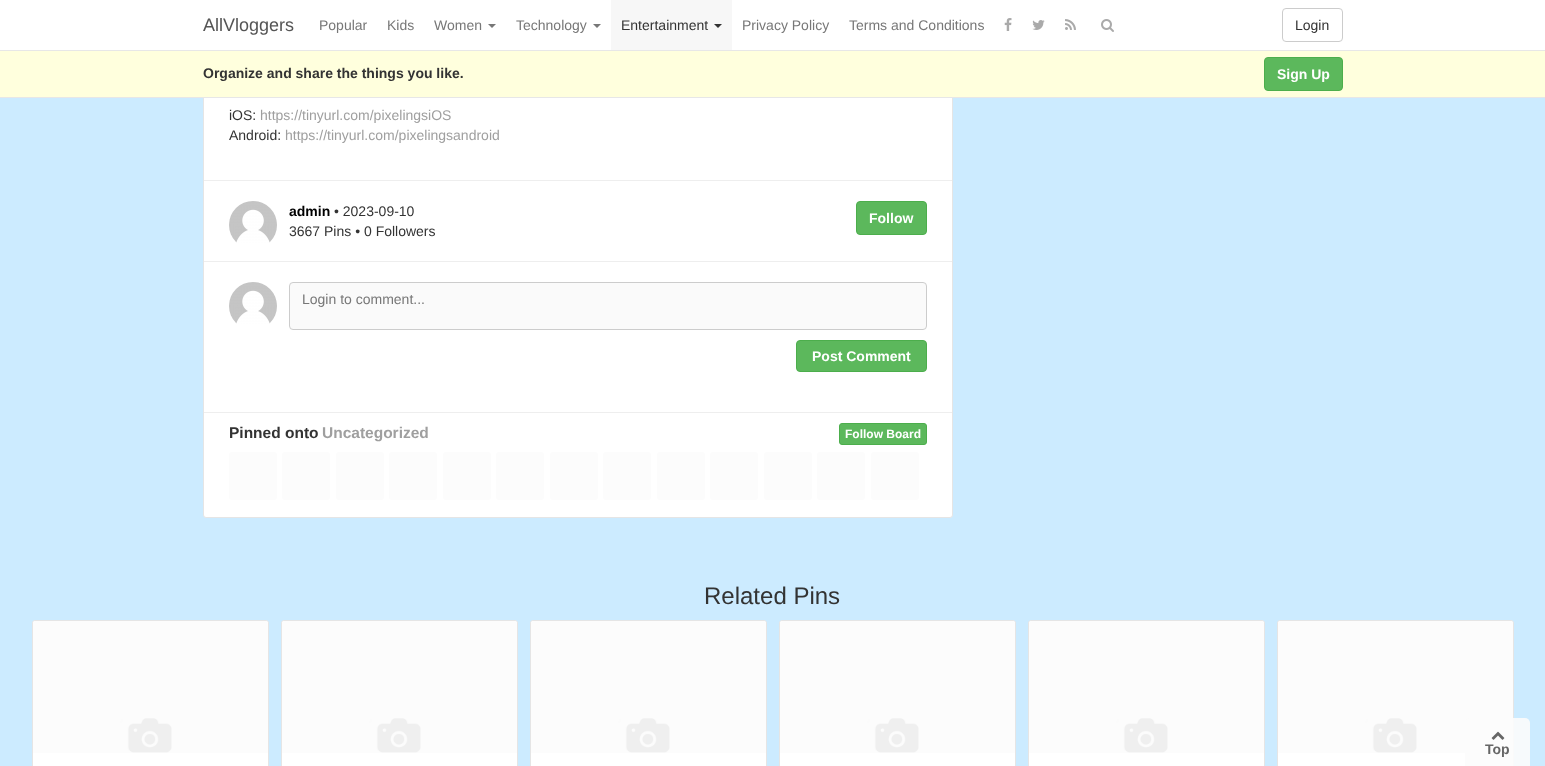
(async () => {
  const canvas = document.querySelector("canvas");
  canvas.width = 1545;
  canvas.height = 766;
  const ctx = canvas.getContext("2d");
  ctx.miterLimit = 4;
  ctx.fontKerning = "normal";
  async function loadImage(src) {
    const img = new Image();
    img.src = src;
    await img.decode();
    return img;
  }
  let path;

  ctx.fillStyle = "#ccebff";
  ctx.fillRect(0, 0, 1545, 766);
  ctx.fillStyle = "#ffffff";
  ctx.beginPath();
  ctx.roundRect(203.5, -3.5, 749, 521, 2.5);
  ctx.fill();
  ctx.strokeStyle = "#e5e5e5";
  ctx.stroke();
  ctx.fillRect(0, 0, 1545, 50);
  ctx.fillStyle = "#e7e7e7";
  ctx.fillRect(0, 50, 1545, 1);
  ctx.fillStyle = "#777777";
  path = new Path2D("M488 24H496L492 28Z");
  ctx.fill(path);
  path = new Path2D("M593 24H601L597 28Z");
  ctx.fill(path);
  ctx.fillStyle = "#f7f7f7";
  ctx.fillRect(611, 0, 121, 50);
  ctx.fillStyle = "#333333";
  path = new Path2D("M714 24H722L718 28Z");
  ctx.fill(path);
  ctx.drawImage(await loadImage("img/1.png"), 1004, 18, 8, 13);
  ctx.drawImage(await loadImage("img/2.png"), 1032, 20, 13, 10);
  ctx.drawImage(await loadImage("img/3.png"), 1065, 19, 11, 11);
  ctx.drawImage(await loadImage("img/4.png"), 1101, 19, 13, 13);
  ctx.beginPath();
  ctx.roundRect(1282.5, 8.5, 60, 33, 3.5);
  ctx.strokeStyle = "#cccccc";
  ctx.stroke();
  ctx.fillStyle = "#ffffdd";
  ctx.fillRect(0, 51, 1545, 46);
  ctx.fillStyle = "#e7e7e7";
  ctx.fillRect(0, 97, 1545, 1);
  ctx.fillStyle = "#5cb85c";
  ctx.beginPath();
  ctx.roundRect(1264.5, 57.5, 78, 33, 3.5);
  ctx.fill();
  ctx.strokeStyle = "#4cae4c";
  ctx.stroke();
  ctx.fillStyle = "#eeeeee";
  ctx.fillRect(204, 180, 748, 1);
  ctx.drawImage(await loadImage("img/5.png"), 229, 201, 48, 42);
  ctx.fillStyle = "#5cb85c";
  ctx.beginPath();
  ctx.roundRect(856.5, 201.5, 70, 33, 3.5);
  ctx.fill();
  ctx.stroke();
  ctx.fillStyle = "#eeeeee";
  ctx.fillRect(204, 261, 748, 1);
  ctx.drawImage(await loadImage("img/5.png"), 229, 282, 48, 42);
  ctx.fillStyle = "#fafafa";
  ctx.beginPath();
  ctx.roundRect(289.5, 282.5, 637, 47, 3.5);
  ctx.fill();
  ctx.strokeStyle = "#cccccc";
  ctx.stroke();
  ctx.fillStyle = "#5cb85c";
  ctx.beginPath();
  ctx.roundRect(796.5, 340.5, 130, 31, 3.5);
  ctx.fill();
  ctx.strokeStyle = "#4cae4c";
  ctx.stroke();
  ctx.fillStyle = "#eeeeee";
  ctx.fillRect(204, 412, 748, 1);
  ctx.fillStyle = "#5cb85c";
  ctx.beginPath();
  ctx.roundRect(839.5, 423.5, 87, 21, 2.5);
  ctx.fill();
  ctx.stroke();
  ctx.fillStyle = "#fcfcfc";
  ctx.beginPath();
  ctx.roundRect(229, 452, 48, 48, 3);
  ctx.fill();
  ctx.beginPath();
  ctx.roundRect(282, 452, 48, 48, 3);
  ctx.fill();
  ctx.beginPath();
  ctx.roundRect(336, 452, 48, 48, 3);
  ctx.fill();
  ctx.beginPath();
  ctx.roundRect(389, 452, 48, 48, 3);
  ctx.fill();
  ctx.beginPath();
  ctx.roundRect(443, 452, 48, 48, 3);
  ctx.fill();
  ctx.beginPath();
  ctx.roundRect(496, 452, 48, 48, 3);
  ctx.fill();
  ctx.beginPath();
  ctx.roundRect(550, 452, 48, 48, 3);
  ctx.fill();
  ctx.beginPath();
  ctx.roundRect(603, 452, 48, 48, 3);
  ctx.fill();
  ctx.beginPath();
  ctx.roundRect(657, 452, 48, 48, 3);
  ctx.fill();
  ctx.beginPath();
  ctx.roundRect(710, 452, 48, 48, 3);
  ctx.fill();
  ctx.beginPath();
  ctx.roundRect(764, 452, 48, 48, 3);
  ctx.fill();
  ctx.beginPath();
  ctx.roundRect(817, 452, 48, 48, 3);
  ctx.fill();
  ctx.beginPath();
  ctx.roundRect(871, 452, 48, 48, 3);
  ctx.fill();
  ctx.fillStyle = "#ffffff";
  ctx.beginPath();
  ctx.roundRect(32.5, 620.5, 236, 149, 2.5);
  ctx.fill();
  ctx.strokeStyle = "#e5e5e5";
  ctx.stroke();
  ctx.drawImage(await loadImage("img/6.png"), 33, 621, 235, 132);
  ctx.beginPath();
  ctx.roundRect(281.5, 620.5, 236, 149, 2.5);
  ctx.fill();
  ctx.stroke();
  ctx.drawImage(await loadImage("img/6.png"), 282, 621, 235, 132);
  ctx.beginPath();
  ctx.roundRect(530.5, 620.5, 236, 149, 2.5);
  ctx.fill();
  ctx.stroke();
  ctx.drawImage(await loadImage("img/6.png"), 531, 621, 235, 132);
  ctx.beginPath();
  ctx.roundRect(779.5, 620.5, 236, 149, 2.5);
  ctx.fill();
  ctx.stroke();
  ctx.drawImage(await loadImage("img/6.png"), 780, 621, 235, 132);
  ctx.beginPath();
  ctx.roundRect(1028.5, 620.5, 236, 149, 2.5);
  ctx.fill();
  ctx.stroke();
  ctx.drawImage(await loadImage("img/6.png"), 1029, 621, 235, 132);
  ctx.beginPath();
  ctx.roundRect(1277.5, 620.5, 236, 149, 2.5);
  ctx.fill();
  ctx.stroke();
  ctx.drawImage(await loadImage("img/6.png"), 1278, 621, 235, 132);
  ctx.fillStyle = "rgba(252, 252, 252, 0.9)";
  ctx.beginPath();
  ctx.roundRect(1465, 718, 65, 48, [5, 5, 0, 0]);
  ctx.fill();
  ctx.drawImage(await loadImage("img/7.png"), 1491, 731, 14, 9);
  ctx.font = "18px Liberation Sans";
  ctx.fillStyle = "#555555";
  ctx.fillText("AllVloggers", 203, 31);
  ctx.font = "14px Liberation Sans";
  ctx.fillStyle = "#777777";
  for (const [text, x, y] of [
    ["Popular", 319, 30],
    ["Kids", 387, 30],
    ["Women", 434, 30],
    ["Technology", 516, 30],
  ]) {
    ctx.fillText(text, x, y);
  }
  ctx.fillStyle = "#333333";
  ctx.fillText("Entertainment", 621, 30);
  ctx.fillStyle = "#777777";
  ctx.fillText("Privacy Policy", 742, 30);
  ctx.fillText("Terms and Conditions", 849, 30);
  ctx.fillStyle = "#333333";
  ctx.fillText("Login", 1295, 30);
  ctx.font = "bold 14px Liberation Sans";
  ctx.fillText("Organize and share the things you like.", 203, 78);
  ctx.fillStyle = "#ffffff";
  ctx.fillText("Sign Up", 1277, 79);
  ctx.font = "14px Liberation Sans";
  ctx.fillStyle = "#333333";
  ctx.fillText("iOS:", 229, 120);
  ctx.fillStyle = "#9f9f9f";
  ctx.fillText("https://tinyurl.com/pixelingsiOS", 260, 120);
  ctx.fillStyle = "#333333";
  ctx.fillText("Android:", 229, 140);
  ctx.fillStyle = "#9f9f9f";
  ctx.fillText("https://tinyurl.com/pixelingsandroid", 285, 140);
  ctx.font = "bold 14px Liberation Sans";
  ctx.fillStyle = "#000000";
  ctx.fillText("admin", 289, 216);
  ctx.font = "14px Liberation Sans";
  ctx.fillStyle = "#333333";
  ctx.fillText("• 2023-09-10", 334, 216);
  ctx.font = "bold 14px Liberation Sans";
  ctx.fillStyle = "#ffffff";
  ctx.fillText("Follow", 869, 223);
  ctx.font = "14px Liberation Sans";
  ctx.fillStyle = "#333333";
  ctx.fillText("3667 Pins • 0 Followers", 289, 236);
  ctx.fillStyle = "#777777";
  ctx.fillText("Login to comment...", 302, 304);
  ctx.font = "bold 14px Liberation Sans";
  ctx.fillStyle = "#ffffff";
  ctx.fillText("Post Comment", 812, 361);
  ctx.font = "bold 15.5px Liberation Sans";
  ctx.fillStyle = "#333333";
  ctx.fillText("Pinned onto", 229, 438);
  ctx.fillStyle = "#9f9f9f";
  ctx.fillText("Uncategorized", 322, 438);
  ctx.font = "bold 12px Liberation Sans";
  ctx.fillStyle = "#ffffff";
  ctx.fillText("Follow Board", 845, 438);
  ctx.font = "24px Liberation Sans";
  ctx.fillStyle = "#333333";
  ctx.fillText("Related Pins", 704, 604);
  ctx.font = "bold 14px Liberation Sans";
  ctx.fillStyle = "#666666";
  ctx.fillText("Top", 1485, 754);
})();
